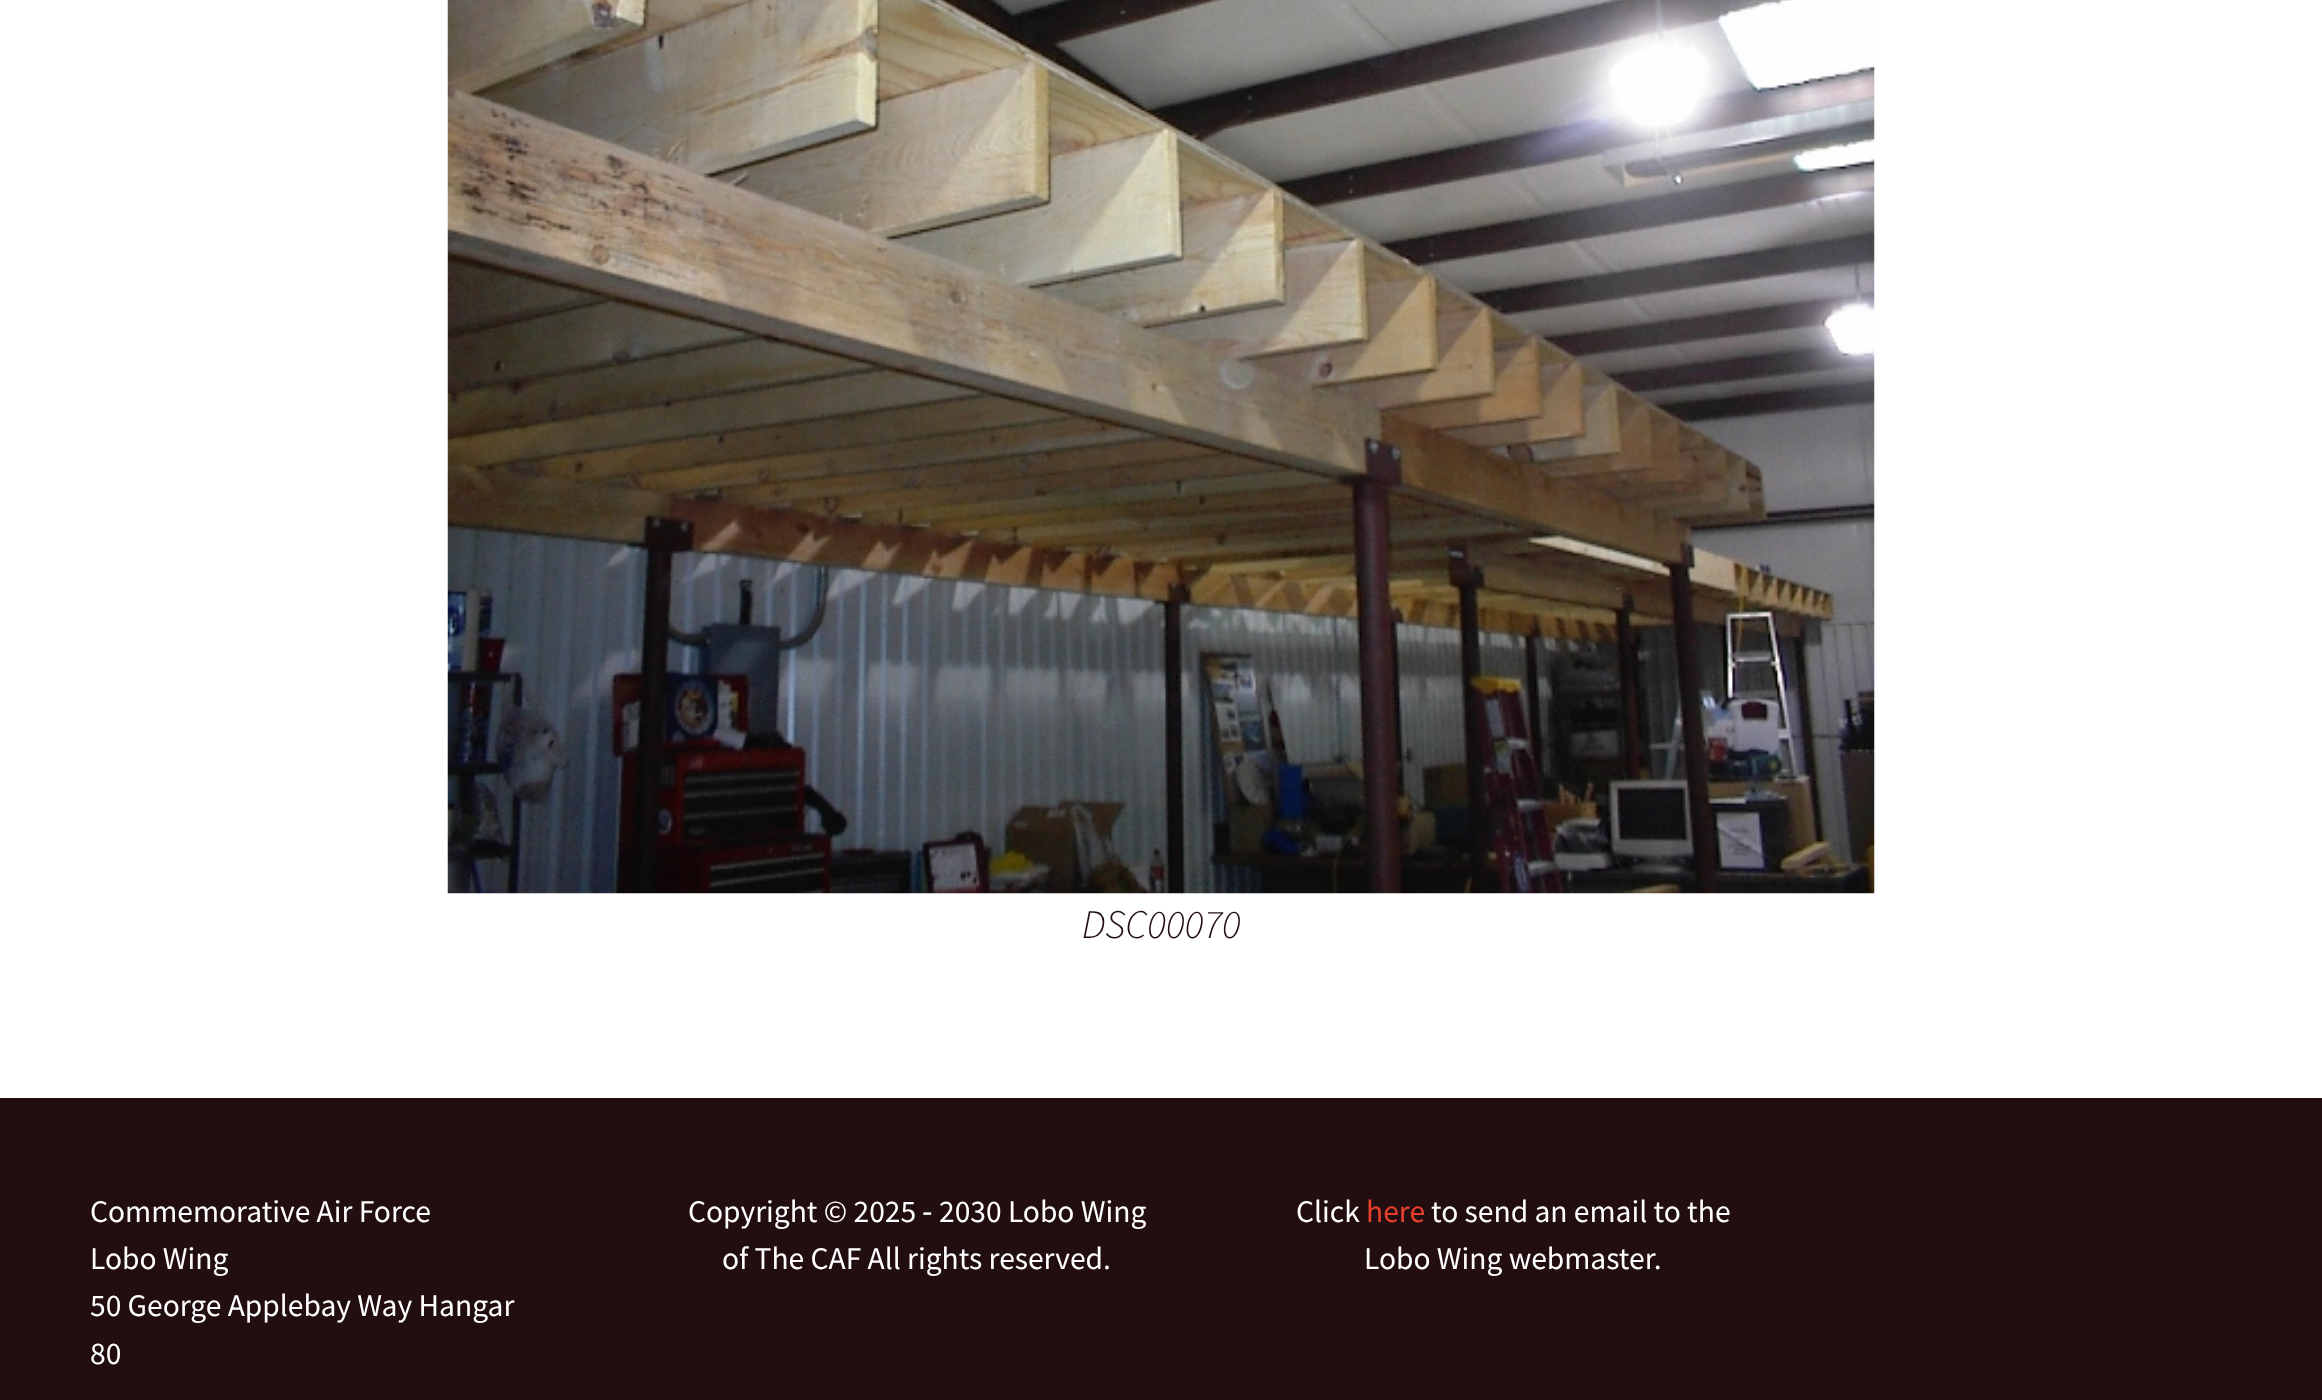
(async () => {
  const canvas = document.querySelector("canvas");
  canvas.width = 2322;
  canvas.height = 1400;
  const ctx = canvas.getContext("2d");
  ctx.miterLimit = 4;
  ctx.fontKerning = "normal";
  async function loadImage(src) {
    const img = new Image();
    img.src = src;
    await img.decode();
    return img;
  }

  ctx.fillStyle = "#220e10";
  ctx.fillRect(0, 0, 2322, 1400);
  ctx.fillStyle = "#ffffff";
  ctx.fillRect(0, 0, 2322, 1098);
  ctx.drawImage(await loadImage("img/1.png"), 447, 0, 1428, 894);
  ctx.font = "italic 300 40.5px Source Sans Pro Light";
  ctx.fillStyle = "#220e10";
  ctx.fillText("DSC00070", 1082, 938);
  ctx.font = "31.5px Source Sans Pro";
  ctx.fillStyle = "#ffffff";
  for (const [text, x, y] of [
    ["Commemorative Air Force", 90, 1222],
    ["Lobo Wing", 90, 1269],
    ["50 George Applebay Way Hangar", 90, 1316],
    ["80", 90, 1364],
    ["Copyright © 2025", 688, 1222],
  ]) {
    ctx.fillText(text, x, y);
  }
  ctx.font = "31.5px Liberation Sans";
  ctx.fillText("‐", 922, 1222);
  ctx.font = "31.5px Source Sans Pro";
  for (const [text, x, y] of [
    ["2030 Lobo Wing", 939, 1222],
    ["of The CAF All rights reserved.", 722, 1269],
    ["Click", 1296, 1222],
  ]) {
    ctx.fillText(text, x, y);
  }
  ctx.fillStyle = "#e6402a";
  ctx.fillText("here", 1366, 1222);
  ctx.fillStyle = "#ffffff";
  ctx.fillText("to send an email to the", 1431, 1222);
  ctx.fillText("Lobo Wing webmaster.", 1364, 1269);
})();
